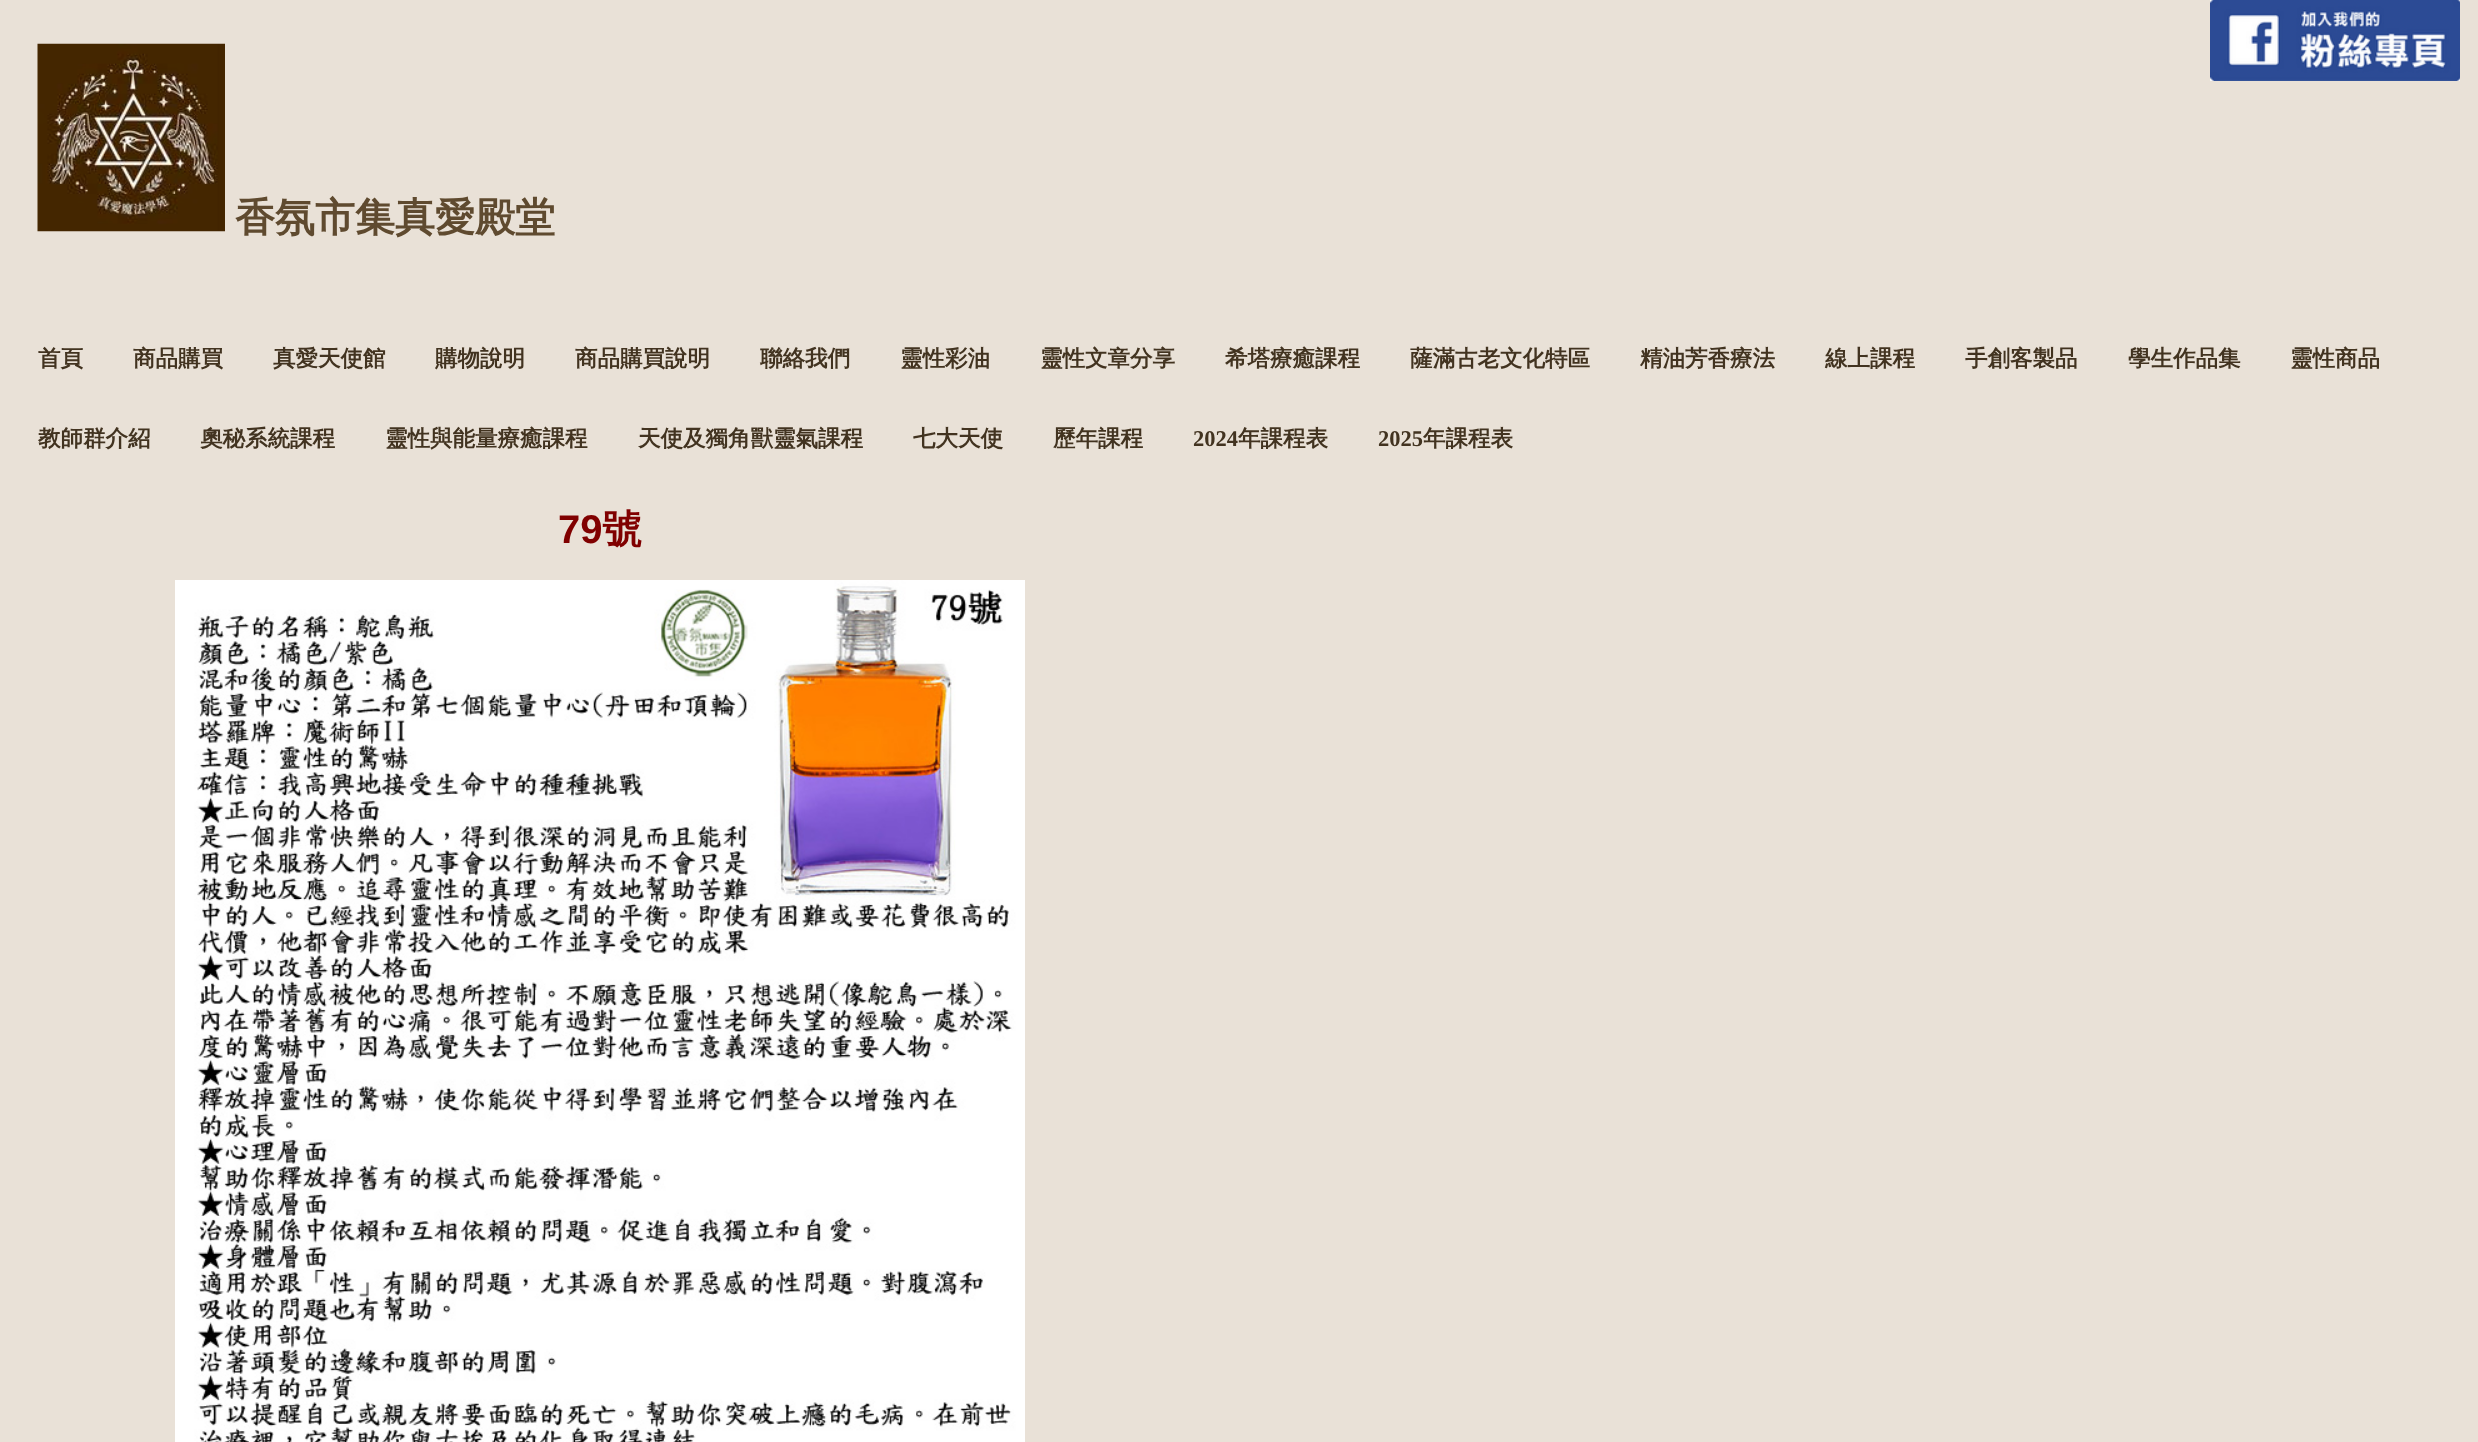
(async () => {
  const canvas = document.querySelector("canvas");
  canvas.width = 2478;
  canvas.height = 1442;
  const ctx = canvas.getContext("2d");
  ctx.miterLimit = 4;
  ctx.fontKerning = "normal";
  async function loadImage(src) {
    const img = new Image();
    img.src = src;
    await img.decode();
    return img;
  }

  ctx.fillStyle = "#e9e1d7";
  ctx.fillRect(0, 0, 2478, 1442);
  ctx.drawImage(await loadImage("img/1.png"), 2210, 0, 250, 81);
  ctx.drawImage(await loadImage("img/2.png"), 37, 43, 188, 189);
  ctx.drawImage(await loadImage("img/3.png"), 175, 580, 850, 862);
  ctx.font = "bold 40px WenQuanYi Zen Hei";
  ctx.fillStyle = "#5f4a2f";
  ctx.fillText("香氛市集真愛殿堂", 235, 231);
  ctx.font = "bold 22.5px WenQuanYi Zen Hei";
  ctx.fillStyle = "#423320";
  for (const [text, x, y] of [
    ["首頁", 38, 366],
    ["商品購買", 133, 366],
    ["真愛天使館", 273, 366],
    ["購物說明", 435, 366],
    ["商品購買說明", 575, 366],
    ["聯絡我們", 760, 366],
    ["靈性彩油", 900, 366],
    ["靈性文章分享", 1040, 366],
    ["希塔療癒課程", 1225, 366],
    ["薩滿古老文化特區", 1410, 366],
    ["精油芳香療法", 1640, 366],
    ["線上課程", 1825, 366],
    ["手創客製品", 1965, 366],
    ["學生作品集", 2128, 366],
    ["靈性商品", 2290, 366],
    ["教師群介紹", 38, 446],
    ["奧秘系統課程", 200, 446],
    ["靈性與能量療癒課程", 385, 446],
    ["天使及獨角獸靈氣課程", 638, 446],
    ["七大天使", 913, 446],
    ["歷年課程", 1053, 446],
  ]) {
    ctx.fillText(text, x, y);
  }
  ctx.font = "bold 22.5px Liberation Serif";
  ctx.fillText("2024", 1193, 446);
  ctx.font = "bold 22.5px WenQuanYi Zen Hei";
  ctx.fillText("年課程表", 1238, 446);
  ctx.font = "bold 22.5px Liberation Serif";
  ctx.fillText("2025", 1378, 446);
  ctx.font = "bold 22.5px WenQuanYi Zen Hei";
  ctx.fillText("年課程表", 1423, 446);
  ctx.font = "bold 40px Liberation Sans";
  ctx.fillStyle = "#800000";
  ctx.fillText("79", 558, 543);
  ctx.font = "bold 40px WenQuanYi Zen Hei";
  ctx.fillText("號", 602, 543);
})();
